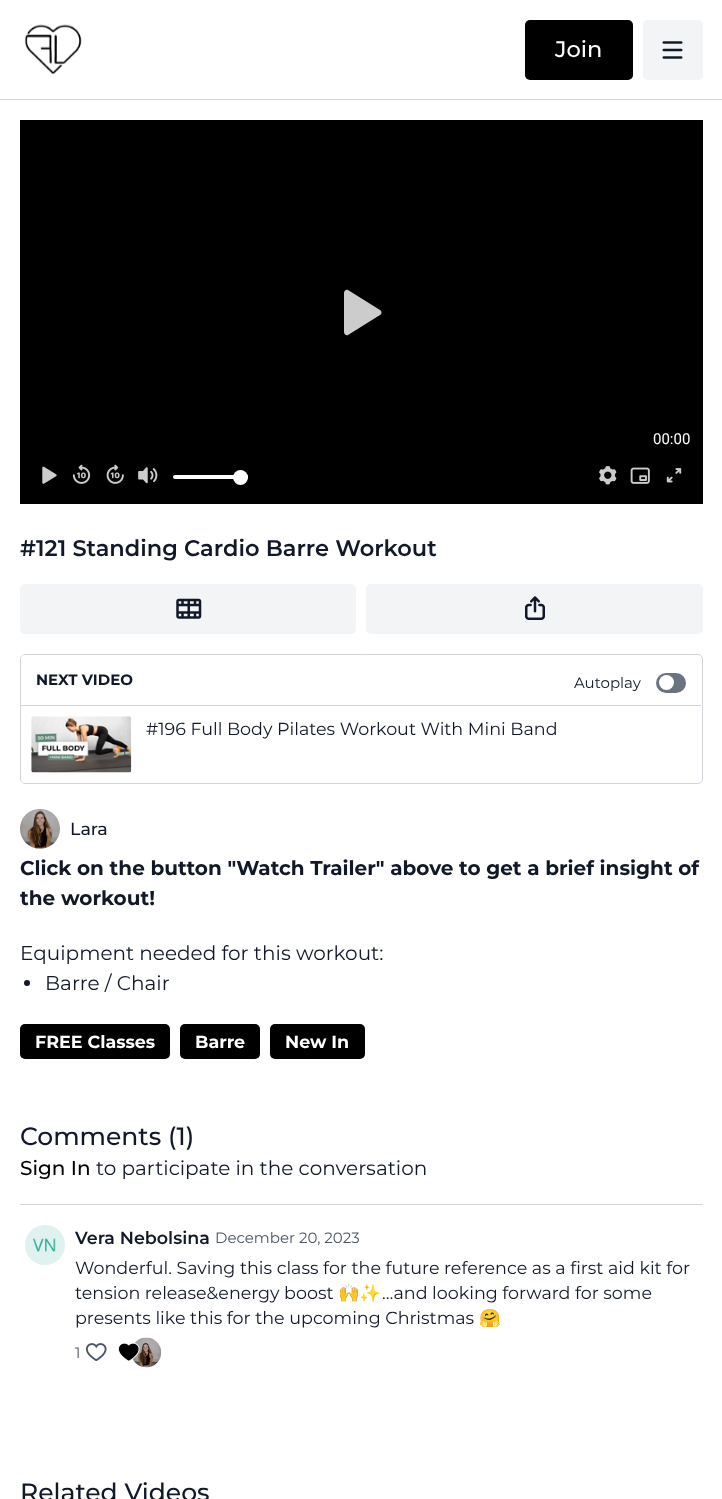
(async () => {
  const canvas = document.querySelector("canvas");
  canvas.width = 722;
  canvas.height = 1499;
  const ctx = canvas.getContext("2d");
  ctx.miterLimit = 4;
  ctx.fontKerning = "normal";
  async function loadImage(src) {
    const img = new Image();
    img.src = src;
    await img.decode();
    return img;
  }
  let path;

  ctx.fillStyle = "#ffffff";
  ctx.fillRect(0, 0, 722, 1499);
  ctx.fillStyle = "#d1d5db";
  ctx.fillRect(0, 99, 722, 1);
  ctx.drawImage(await loadImage("img/1.png"), 24, 24, 58, 51);
  ctx.fillStyle = "#000000";
  ctx.beginPath();
  ctx.roundRect(525, 20, 108, 60, 5);
  ctx.fill();
  ctx.fillStyle = "#f3f4f6";
  ctx.beginPath();
  ctx.roundRect(643, 20, 60, 60, 5);
  ctx.fill();
  ctx.drawImage(await loadImage("img/2.png"), 662, 41, 21, 18);
  ctx.fillStyle = "#000000";
  ctx.fillRect(20, 120, 683, 384);
  ctx.fillStyle = "#cccccc";
  path = new Path2D("M348 290C346 289 344 291 344 293V332C344 334 346 336 348 335L380 315C382 314 382 311 380 310Z");
  ctx.fill(path);
  ctx.drawImage(await loadImage("img/3.png"), 42, 466, 15, 18);
  ctx.drawImage(await loadImage("img/4.png"), 72, 464, 19, 20);
  ctx.drawImage(await loadImage("img/5.png"), 106, 464, 18, 20);
  ctx.drawImage(await loadImage("img/6.png"), 138, 467, 20, 17);
  ctx.fillStyle = "#ffffff";
  ctx.beginPath();
  ctx.roundRect(173, 475, 75, 4, 2);
  ctx.fill();
  ctx.beginPath();
  ctx.arc(240.5, 477.5, 7.5, 0, Math.PI * 2);
  ctx.fill();
  ctx.drawImage(await loadImage("img/7.png"), 599, 466, 18, 19);
  ctx.drawImage(await loadImage("img/8.png"), 630, 467, 20, 17);
  ctx.drawImage(await loadImage("img/9.png"), 666, 468, 16, 15);
  ctx.fillStyle = "#f3f4f6";
  ctx.beginPath();
  ctx.roundRect(20, 584, 336, 50, 5);
  ctx.fill();
  ctx.drawImage(await loadImage("img/10.png"), 176, 598, 26, 21);
  ctx.beginPath();
  ctx.roundRect(366, 584, 337, 50, 5);
  ctx.fill();
  ctx.drawImage(await loadImage("img/11.png"), 525, 596, 20, 24);
  ctx.beginPath();
  ctx.roundRect(20.5, 654.5, 682, 129, 4.5);
  ctx.strokeStyle = "#d1d5db";
  ctx.stroke();
  ctx.fillStyle = "#ffffff";
  ctx.beginPath();
  ctx.roundRect(21, 655, 680, 50, [4, 4, 0, 0]);
  ctx.fill();
  ctx.fillStyle = "#d1d5db";
  ctx.fillRect(21, 705, 680, 1);
  ctx.fillStyle = "#6b7280";
  ctx.beginPath();
  ctx.roundRect(656, 673, 30, 20, 10);
  ctx.fill();
  ctx.fillStyle = "#ffffff";
  ctx.beginPath();
  ctx.arc(666.5, 682.5, 7.5, 0, Math.PI * 2);
  ctx.fill();
  ctx.drawImage(await loadImage("img/12.png"), 31, 716, 101, 57);
  ctx.drawImage(await loadImage("img/13.png"), 20, 809, 40, 40);
  ctx.fillStyle = "#111827";
  ctx.beginPath();
  ctx.arc(27, 983, 3, 0, Math.PI * 2);
  ctx.fill();
  ctx.fillStyle = "#000000";
  ctx.beginPath();
  ctx.roundRect(20, 1024, 150, 35, 5);
  ctx.fill();
  ctx.beginPath();
  ctx.roundRect(180, 1024, 80, 35, 5);
  ctx.fill();
  ctx.beginPath();
  ctx.roundRect(270, 1024, 95, 35, 5);
  ctx.fill();
  ctx.fillStyle = "#d1d5db";
  ctx.fillRect(20, 1204, 683, 1);
  ctx.drawImage(await loadImage("img/14.png"), 25, 1225, 40, 40);
  ctx.drawImage(await loadImage("img/15.png"), 85, 1343, 22, 18);
  ctx.drawImage(await loadImage("img/17.png"), 132, 1337, 30, 31);
  ctx.drawImage(await loadImage("img/16.png"), 118, 1343, 22, 18);
  ctx.font = "500 22.5px Montserrat";
  ctx.fillStyle = "#ffffff";
  ctx.fillText("Join", 555, 57);
  ctx.font = "15px Roboto";
  ctx.fillText("00:00", 653, 444);
  ctx.font = "600 22.5px Montserrat";
  ctx.fillStyle = "#111827";
  ctx.fillText("#121 Standing Cardio Barre Workout", 20, 556);
  ctx.font = "bold 15px Montserrat";
  ctx.fillText("NEXT VIDEO", 36, 685);
  ctx.font = "15px Montserrat";
  ctx.fillText("Autoplay", 574, 688);
  ctx.font = "17.5px Montserrat";
  ctx.fillText("#196 Full Body Pilates Workout With Mini Band", 146, 735);
  ctx.font = "500 17.5px Montserrat";
  ctx.fillText("Lara", 70, 835);
  ctx.font = "bold 20px Montserrat";
  ctx.fillText("Click on the button \"Watch Trailer\" above to get a brief insight of", 20, 875);
  ctx.fillText("the workout!", 20, 905);
  ctx.font = "20px Montserrat";
  ctx.fillText("Equipment needed for this workout:", 20, 960);
  ctx.fillText("Barre / Chair", 45, 990);
  ctx.font = "bold 17.5px Montserrat";
  ctx.fillStyle = "#ffffff";
  for (const [text, x, y] of [
    ["FREE Classes", 35, 1048],
    ["Barre", 195, 1048],
    ["New In", 285, 1048],
  ]) {
    ctx.fillText(text, x, y);
  }
  ctx.font = "500 25px Montserrat";
  ctx.fillStyle = "#111827";
  ctx.fillText("Comments (1)", 20, 1145);
  ctx.font = "500 20px Montserrat";
  ctx.fillStyle = "#000000";
  ctx.fillText("Sign In", 20, 1175);
  ctx.font = "20px Montserrat";
  ctx.fillStyle = "#111827";
  ctx.fillText("to participate in the conversation", 96, 1175);
  ctx.font = "600 17.5px Montserrat";
  ctx.fillText("Vera Nebolsina", 75, 1244);
  ctx.font = "15px Montserrat";
  ctx.fillStyle = "#4b5563";
  ctx.fillText("December 20, 2023", 215, 1243);
  ctx.font = "17.5px Montserrat";
  ctx.fillStyle = "#111827";
  ctx.fillText("Wonderful. Saving this class for the future reference as a first aid kit for", 75, 1274);
  ctx.fillText("tension release&energy boost", 75, 1299);
  ctx.font = "17.5px Noto Color Emoji";
  ctx.fillText("🙌✨", 338, 1299);
  ctx.font = "17.5px Montserrat";
  ctx.fillText("…and looking forward for some", 382, 1299);
  ctx.fillText("presents like this for the upcoming Christmas", 75, 1324);
  ctx.font = "17.5px Noto Color Emoji";
  ctx.fillText("🤗", 479, 1324);
  ctx.font = "15px Montserrat";
  ctx.fillStyle = "#4b5563";
  ctx.fillText("1", 75, 1358);
  ctx.font = "500 25px Montserrat";
  ctx.fillStyle = "#111827";
  ctx.fillText("Related Videos", 20, 1501);
})();
